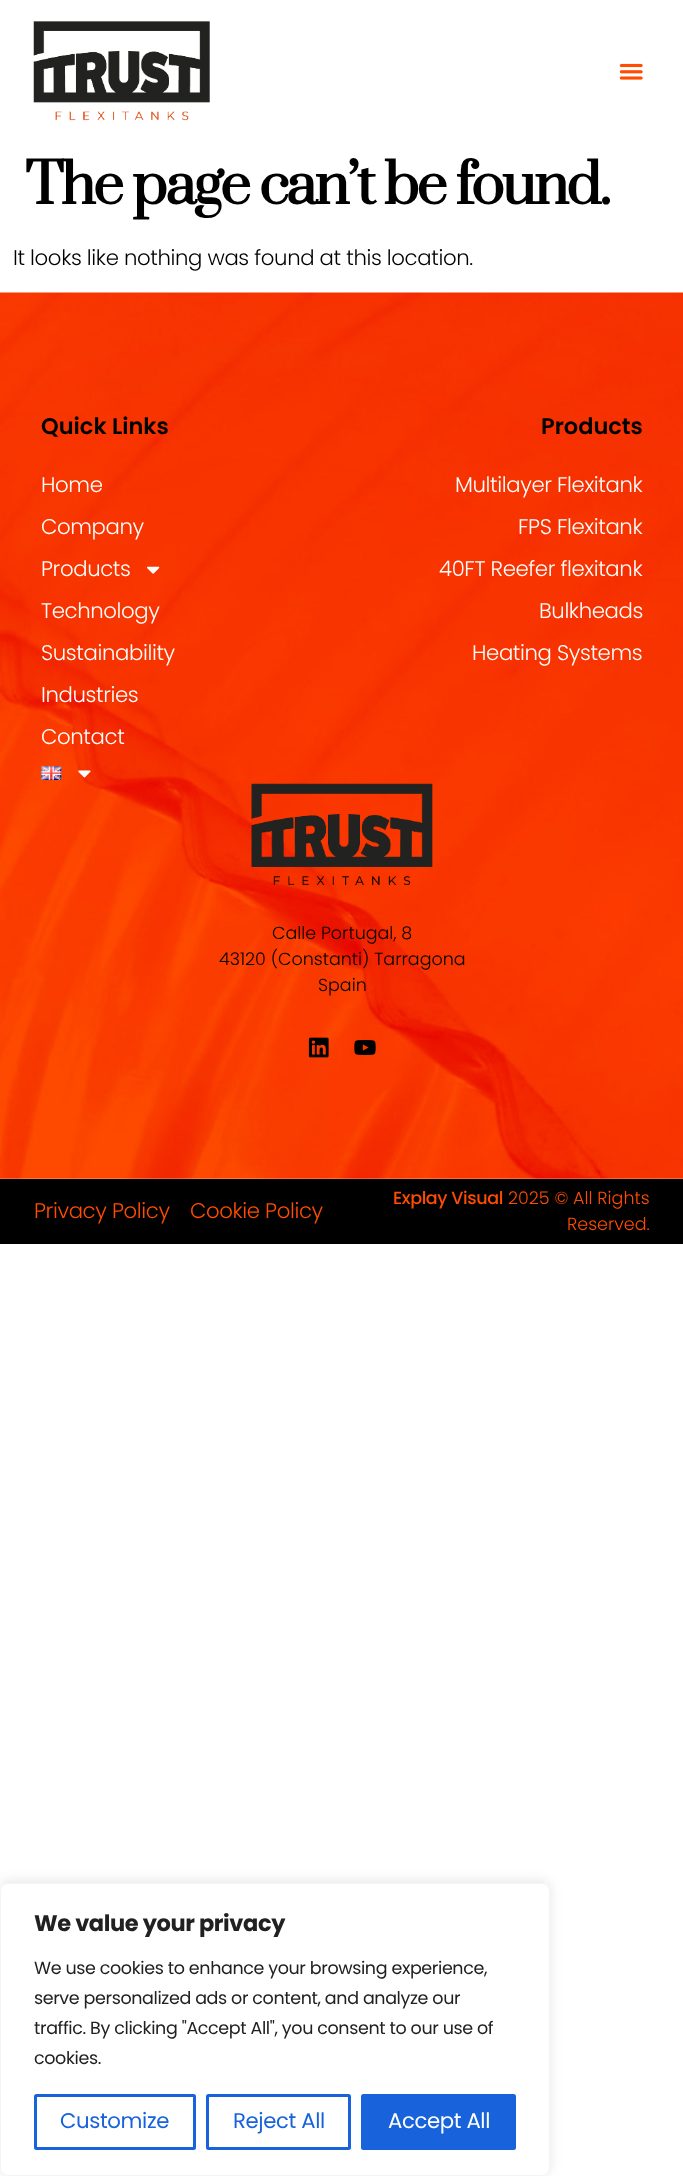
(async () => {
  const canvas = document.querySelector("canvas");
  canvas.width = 683;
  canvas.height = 2176;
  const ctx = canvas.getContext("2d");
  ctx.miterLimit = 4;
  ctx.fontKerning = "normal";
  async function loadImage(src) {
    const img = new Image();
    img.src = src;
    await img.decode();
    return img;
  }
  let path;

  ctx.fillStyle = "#ffffff";
  ctx.fillRect(0, 0, 683, 2176);
  ctx.drawImage(await loadImage("img/1.png"), 33, 21, 177, 100);
  ctx.drawImage(await loadImage("img/2.png"), 619, 63, 24, 17);
  ctx.drawImage(await loadImage("img/3.png"), 0, 292, 683, 887);
  ctx.drawImage(await loadImage("img/4.png"), 147, 566, 13, 8);
  ctx.drawImage(await loadImage("img/5.png"), 41, 766, 21, 14);
  ctx.drawImage(await loadImage("img/6.png"), 78, 770, 13, 8);
  ctx.drawImage(await loadImage("img/7.png"), 251, 783, 182, 102);
  ctx.drawImage(await loadImage("img/8.png"), 308, 1037, 21, 21);
  ctx.drawImage(await loadImage("img/9.png"), 354, 1040, 22, 15);
  ctx.fillStyle = "#000000";
  ctx.fillRect(0, 1179, 683, 65);
  ctx.save();
  path = new Path2D("M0 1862H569V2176H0ZM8 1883H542C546.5 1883 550 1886.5 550 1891V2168C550 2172.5 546.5 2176 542 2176H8C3.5 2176 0 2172.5 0 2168V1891C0 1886.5 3.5 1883 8 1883Z");
  ctx.clip(path, "evenodd");
  ctx.fillStyle = "rgba(172, 171, 171, 0.3)";
  ctx.filter = "blur(6px)";
  ctx.beginPath();
  ctx.roundRect(0, 1881, 550, 294, 8);
  ctx.fill();
  ctx.filter = "none";
  ctx.restore();
  ctx.beginPath();
  ctx.roundRect(0.5, 1883.5, 549, 292, 7.5);
  ctx.strokeStyle = "#f4f4f4";
  ctx.stroke();
  ctx.beginPath();
  ctx.roundRect(35.5, 2095.5, 159, 53, 1);
  ctx.strokeStyle = "#1863dc";
  ctx.lineWidth = 3;
  ctx.stroke();
  ctx.beginPath();
  ctx.roundRect(207.5, 2095.5, 142, 53, 1);
  ctx.stroke();
  ctx.fillStyle = "#1863dc";
  ctx.beginPath();
  ctx.roundRect(362.5, 2095.5, 152, 53, 1);
  ctx.fill();
  ctx.stroke();
  ctx.letterSpacing = "-2.5px";
  ctx.font = "bold 55px Prata";
  ctx.fillStyle = "#000000";
  ctx.fillText("The page can’t be found.", 25, 204);
  ctx.letterSpacing = "-0.38px";
  ctx.font = "300 21.25px Poppins";
  ctx.fillText("It looks like nothing was found at this location.", 13, 265);
  ctx.letterSpacing = "0px";
  ctx.font = "600 22.5px Poppins";
  ctx.fillText("Quick Links", 41, 434);
  ctx.letterSpacing = "-0.38px";
  ctx.font = "300 21.25px Poppins";
  ctx.fillStyle = "#ffffff";
  for (const [text, x, y] of [
    ["Home", 41, 492],
    ["Company", 41, 534],
    ["Products", 41, 576],
    ["Technology", 41, 618],
    ["Sustainability", 41, 660],
    ["Industries", 41, 702],
    ["Contact", 41, 744],
  ]) {
    ctx.fillText(text, x, y);
  }
  ctx.letterSpacing = "0px";
  ctx.font = "600 22.5px Poppins";
  ctx.fillStyle = "#000000";
  ctx.fillText("Products", 541, 434);
  ctx.letterSpacing = "-0.38px";
  ctx.font = "300 21.25px Poppins";
  ctx.fillStyle = "#ffffff";
  for (const [text, x, y] of [
    ["Multilayer Flexitank", 455, 492],
    ["FPS Flexitank", 518, 534],
    ["40FT Reefer flexitank", 439, 576],
    ["Bulkheads", 539, 618],
    ["Heating Systems", 472, 660],
  ]) {
    ctx.fillText(text, x, y);
  }
  ctx.letterSpacing = "0px";
  ctx.font = "300 17.5px Poppins";
  ctx.fillStyle = "#000000";
  for (const [text, x, y] of [
    ["Calle Portugal, 8", 272, 939],
    ["43120 (Constanti) Tarragona", 219, 965],
    ["Spain", 318, 991],
  ]) {
    ctx.fillText(text, x, y);
  }
  ctx.letterSpacing = "-0.38px";
  ctx.font = "300 21.25px Poppins";
  ctx.fillStyle = "#ff4c00";
  ctx.fillText("Privacy Policy", 34, 1218);
  ctx.fillText("Cookie Policy", 190, 1218);
  ctx.font = "500 17.5px Poppins";
  ctx.fillText("Explay Visual", 393, 1204);
  ctx.letterSpacing = "0px";
  ctx.font = "300 17.5px Poppins";
  ctx.fillText("2025 © All Rights", 508, 1204);
  ctx.fillText("Reserved.", 567, 1230);
  ctx.letterSpacing = "-0.38px";
  ctx.font = "bold 22.5px Poppins";
  ctx.fillStyle = "#212121";
  ctx.fillText("We value your privacy", 34, 1931);
  ctx.font = "17.5px Poppins";
  for (const [text, x, y] of [
    ["We use cookies to enhance your browsing experience,", 34, 1974],
    ["serve personalized ads or content, and analyze our", 34, 2004],
    ["traffic. By clicking \"Accept All\", you consent to our use of", 34, 2034],
    ["cookies.", 34, 2064],
  ]) {
    ctx.fillText(text, x, y);
  }
  ctx.font = "21.25px Poppins";
  ctx.fillStyle = "#1863dc";
  ctx.fillText("Customize", 60, 2128);
  ctx.fillText("Reject All", 233, 2128);
  ctx.fillStyle = "#ffffff";
  ctx.fillText("Accept All", 388, 2128);
})();
